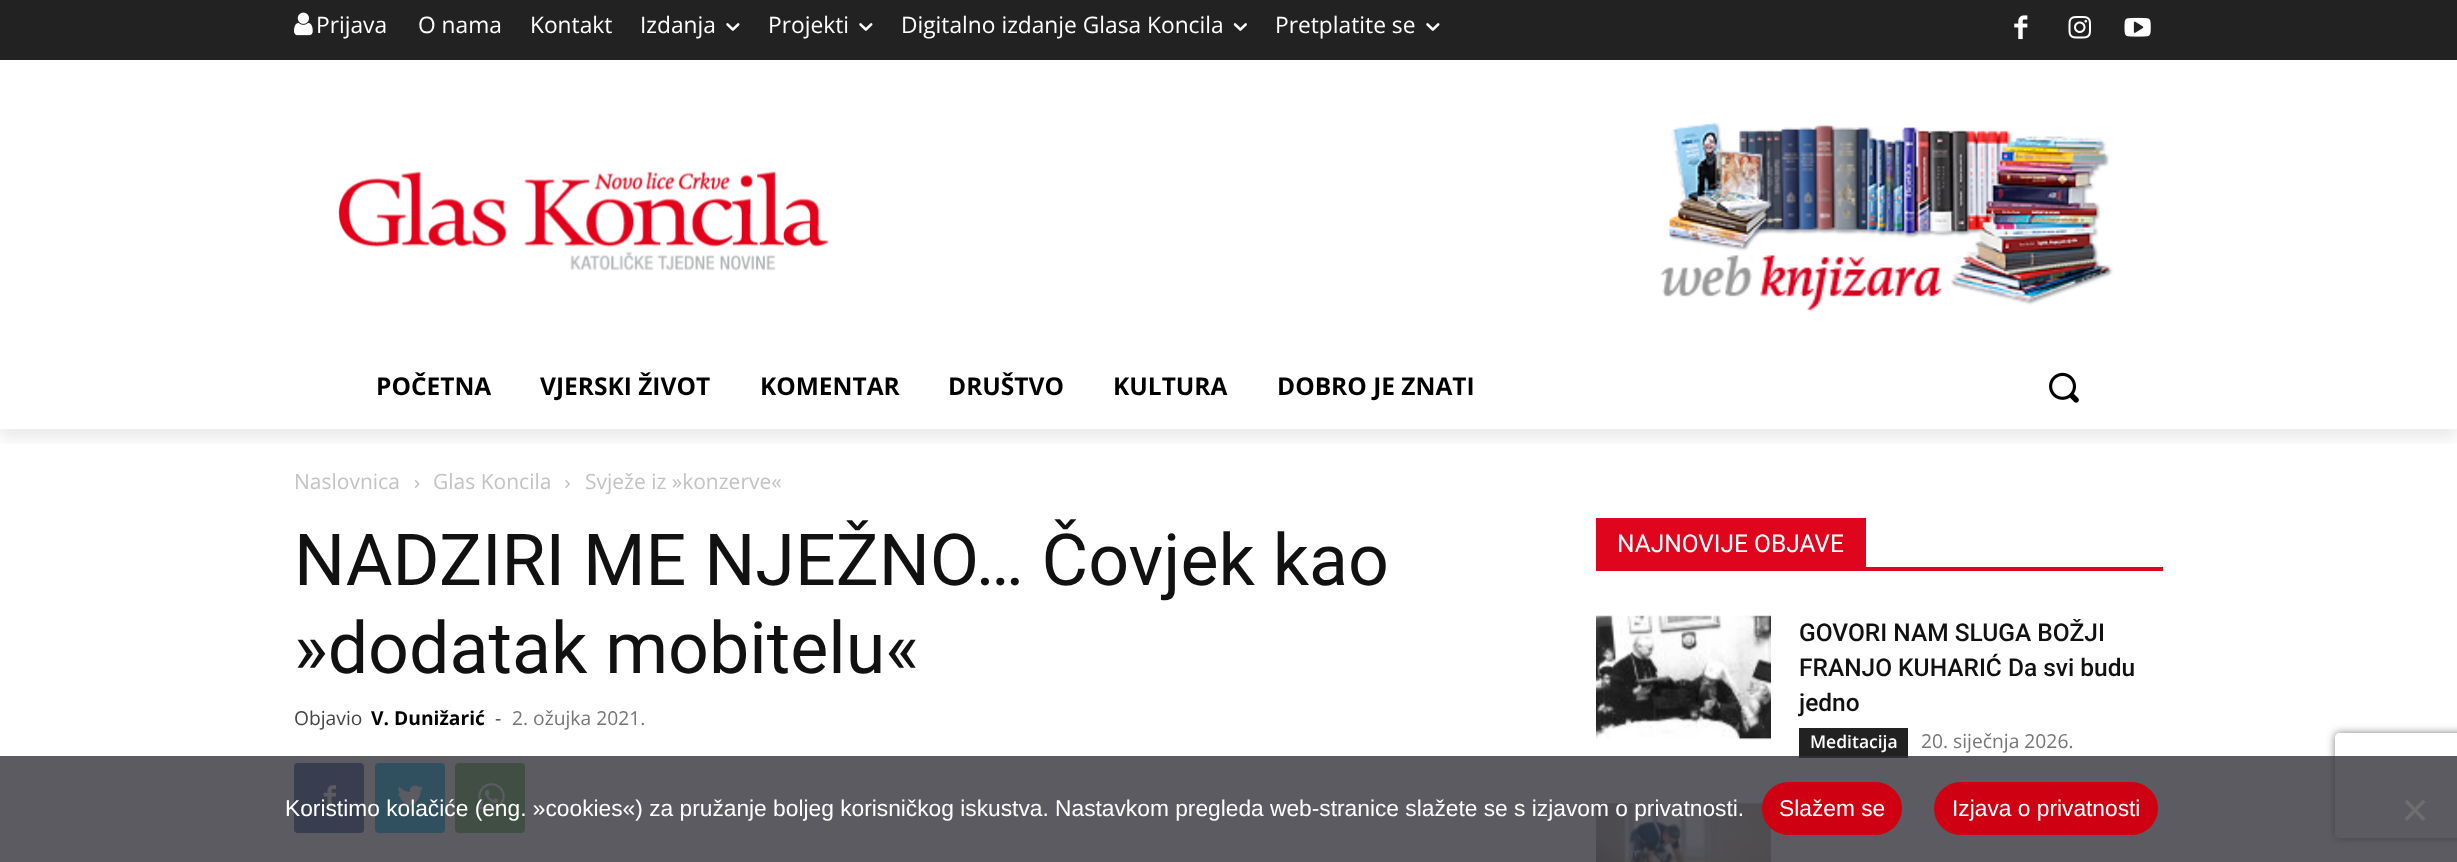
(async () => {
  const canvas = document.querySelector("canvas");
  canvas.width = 2457;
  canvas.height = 862;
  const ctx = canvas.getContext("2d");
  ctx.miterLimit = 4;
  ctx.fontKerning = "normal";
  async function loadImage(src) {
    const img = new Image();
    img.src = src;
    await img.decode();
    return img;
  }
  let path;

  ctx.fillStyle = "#ffffff";
  ctx.fillRect(0, 0, 2457, 862);
  ctx.fillStyle = "#222222";
  ctx.fillRect(0, 0, 2457, 60);
  ctx.drawImage(await loadImage("img/1.png"), 294, 12, 19, 24);
  ctx.drawImage(await loadImage("img/4.png"), 2014, 15, 14, 25);
  ctx.drawImage(await loadImage("img/5.png"), 2068, 16, 23, 23);
  ctx.drawImage(await loadImage("img/6.png"), 2124, 17, 27, 20);
  ctx.drawImage(await loadImage("img/7.png"), 338, 171, 491, 100);
  ctx.drawImage(await loadImage("img/8.png"), 1660, 122, 453, 189);
  ctx.save();
  ctx.beginPath();
  ctx.rect(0, 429, 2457, 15);
  ctx.clip();
  ctx.fillStyle = "rgba(0, 0, 0, 0.08)";
  ctx.filter = "blur(7px)";
  ctx.beginPath();
  ctx.rect(0, 11, 2457, 428);
  ctx.fill();
  ctx.filter = "none";
  ctx.restore();
  ctx.drawImage(await loadImage("img/2.png"), 726, 23, 14, 8);
  ctx.drawImage(await loadImage("img/2.png"), 859, 23, 14, 8);
  ctx.drawImage(await loadImage("img/3.png"), 1233, 23, 14, 8);
  ctx.drawImage(await loadImage("img/2.png"), 1426, 23, 14, 8);
  ctx.drawImage(await loadImage("img/9.png"), 2049, 372, 30, 31);
  ctx.drawImage(await loadImage("img/10.png"), 414, 480, 6, 8);
  ctx.drawImage(await loadImage("img/11.png"), 565, 480, 5, 8);
  ctx.fillStyle = "#516eab";
  ctx.beginPath();
  ctx.roundRect(294, 763, 70, 70, 4);
  ctx.fill();
  ctx.drawImage(await loadImage("img/12.png"), 323, 785, 13, 23);
  ctx.fillStyle = "#29c5f6";
  ctx.beginPath();
  ctx.roundRect(375, 763, 70, 70, 4);
  ctx.fill();
  ctx.drawImage(await loadImage("img/13.png"), 397, 785, 26, 22);
  ctx.fillStyle = "#7bbf6a";
  ctx.beginPath();
  ctx.roundRect(455, 763, 70, 70, 4);
  ctx.fill();
  ctx.drawImage(await loadImage("img/14.png"), 477, 783, 28, 28);
  ctx.fillStyle = "#de051d";
  ctx.fillRect(1596, 567, 567, 4);
  ctx.fillRect(1596, 518, 270, 49);
  ctx.drawImage(await loadImage("img/15.png"), 1596, 615, 175, 125);
  ctx.fillStyle = "#222222";
  ctx.fillRect(1799, 728, 109, 30);
  ctx.drawImage(await loadImage("img/16.png"), 1596, 803, 175, 59);
  ctx.save();
  path = new Path2D("M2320 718H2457V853H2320ZM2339 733H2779C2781 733 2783 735 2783 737V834C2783 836 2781 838 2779 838H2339C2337 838 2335 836 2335 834V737C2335 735 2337 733 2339 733Z");
  ctx.clip(path, "evenodd");
  ctx.fillStyle = "#808080";
  ctx.filter = "blur(4.5px)";
  ctx.beginPath();
  ctx.roundRect(2335, 733, 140, 105, 4);
  ctx.fill();
  ctx.filter = "none";
  ctx.restore();
  ctx.fillStyle = "rgba(50, 50, 58, 0.8)";
  ctx.fillRect(0, 756, 2457, 106);
  ctx.fillStyle = "#ce0011";
  ctx.beginPath();
  ctx.roundRect(1762, 782, 140, 53, 26.5);
  ctx.fill();
  ctx.beginPath();
  ctx.roundRect(1934, 782, 224, 53, 26.5);
  ctx.fill();
  ctx.fillStyle = "#6e6e71";
  path = new Path2D("M2423 799.5L2425.5 802L2407 821L2404.5 818.5Z");
  ctx.fill(path);
  path = new Path2D("M2404.5 802L2407 799.5L2425.5 818.5L2423 821Z");
  ctx.fill(path);
  ctx.font = "22.75px Open Sans";
  ctx.fillStyle = "#ffffff";
  for (const [text, x, y] of [
    ["Prijava", 316, 33],
    ["O nama", 418, 33],
    ["Kontakt", 530, 33],
    ["Izdanja", 640, 33],
    ["Projekti", 768, 33],
    ["Digitalno izdanje Glasa Koncila", 901, 33],
    ["Pretplatite se", 1275, 33],
  ]) {
    ctx.fillText(text, x, y);
  }
  ctx.font = "bold 24.5px Open Sans";
  ctx.fillStyle = "#000000";
  for (const [text, x, y] of [
    ["POČETNA", 376, 395],
    ["VJERSKI ŽIVOT", 540, 395],
    ["KOMENTAR", 760, 395],
    ["DRUŠTVO", 948, 395],
    ["KULTURA", 1113, 395],
    ["DOBRO JE ZNATI", 1277, 395],
  ]) {
    ctx.fillText(text, x, y);
  }
  ctx.font = "21px Open Sans";
  ctx.fillStyle = "#c3c3c3";
  for (const [text, x, y] of [
    ["Naslovnica", 294, 489],
    ["Glas Koncila", 433, 489],
    ["Svježe iz »konzerve«", 585, 489],
  ]) {
    ctx.fillText(text, x, y);
  }
  ctx.font = "71.75px Roboto";
  ctx.fillStyle = "#111111";
  ctx.fillText("NADZIRI ME NJEŽNO… Čovjek kao", 294, 585);
  ctx.fillText("»dodatak mobitelu«", 294, 673);
  ctx.font = "19.25px Open Sans";
  ctx.fillStyle = "#444444";
  ctx.fillText("Objavio", 294, 725);
  ctx.font = "bold 19.25px Open Sans";
  ctx.fillStyle = "#000000";
  ctx.fillText("V. Dunižarić", 371, 725);
  ctx.font = "19.25px Open Sans";
  ctx.fillStyle = "#444444";
  ctx.fillText("-", 495, 725);
  ctx.fillStyle = "#767676";
  ctx.fillText("2. ožujka 2021.", 512, 725);
  ctx.font = "24.5px Roboto";
  ctx.fillStyle = "#ffffff";
  ctx.fillText("NAJNOVIJE OBJAVE", 1617, 552);
  ctx.font = "500 24.5px Roboto";
  ctx.fillStyle = "#111111";
  for (const [text, x, y] of [
    ["GOVORI NAM SLUGA BOŽJI", 1799, 641],
    ["FRANJO KUHARIĆ Da svi budu", 1799, 676],
    ["jedno", 1799, 711],
  ]) {
    ctx.fillText(text, x, y);
  }
  ctx.font = "600 17.5px Open Sans";
  ctx.fillStyle = "#ffffff";
  ctx.fillText("Meditacija", 1810, 748);
  ctx.font = "19.25px Open Sans";
  ctx.fillStyle = "#767676";
  ctx.fillText("20. siječnja 2026.", 1921, 748);
  ctx.font = "22.75px Liberation Sans";
  ctx.fillStyle = "#ffffff";
  for (const [text, x, y] of [
    ["Koristimo kolačiće (eng. »cookies«) za pružanje boljeg korisničkog iskustva. Nastavkom pregleda web-stranice slažete se s izjavom o privatnosti.", 285, 816],
    ["Slažem se", 1779, 816],
    ["Izjava o privatnosti", 1952, 816],
  ]) {
    ctx.fillText(text, x, y);
  }
})();
